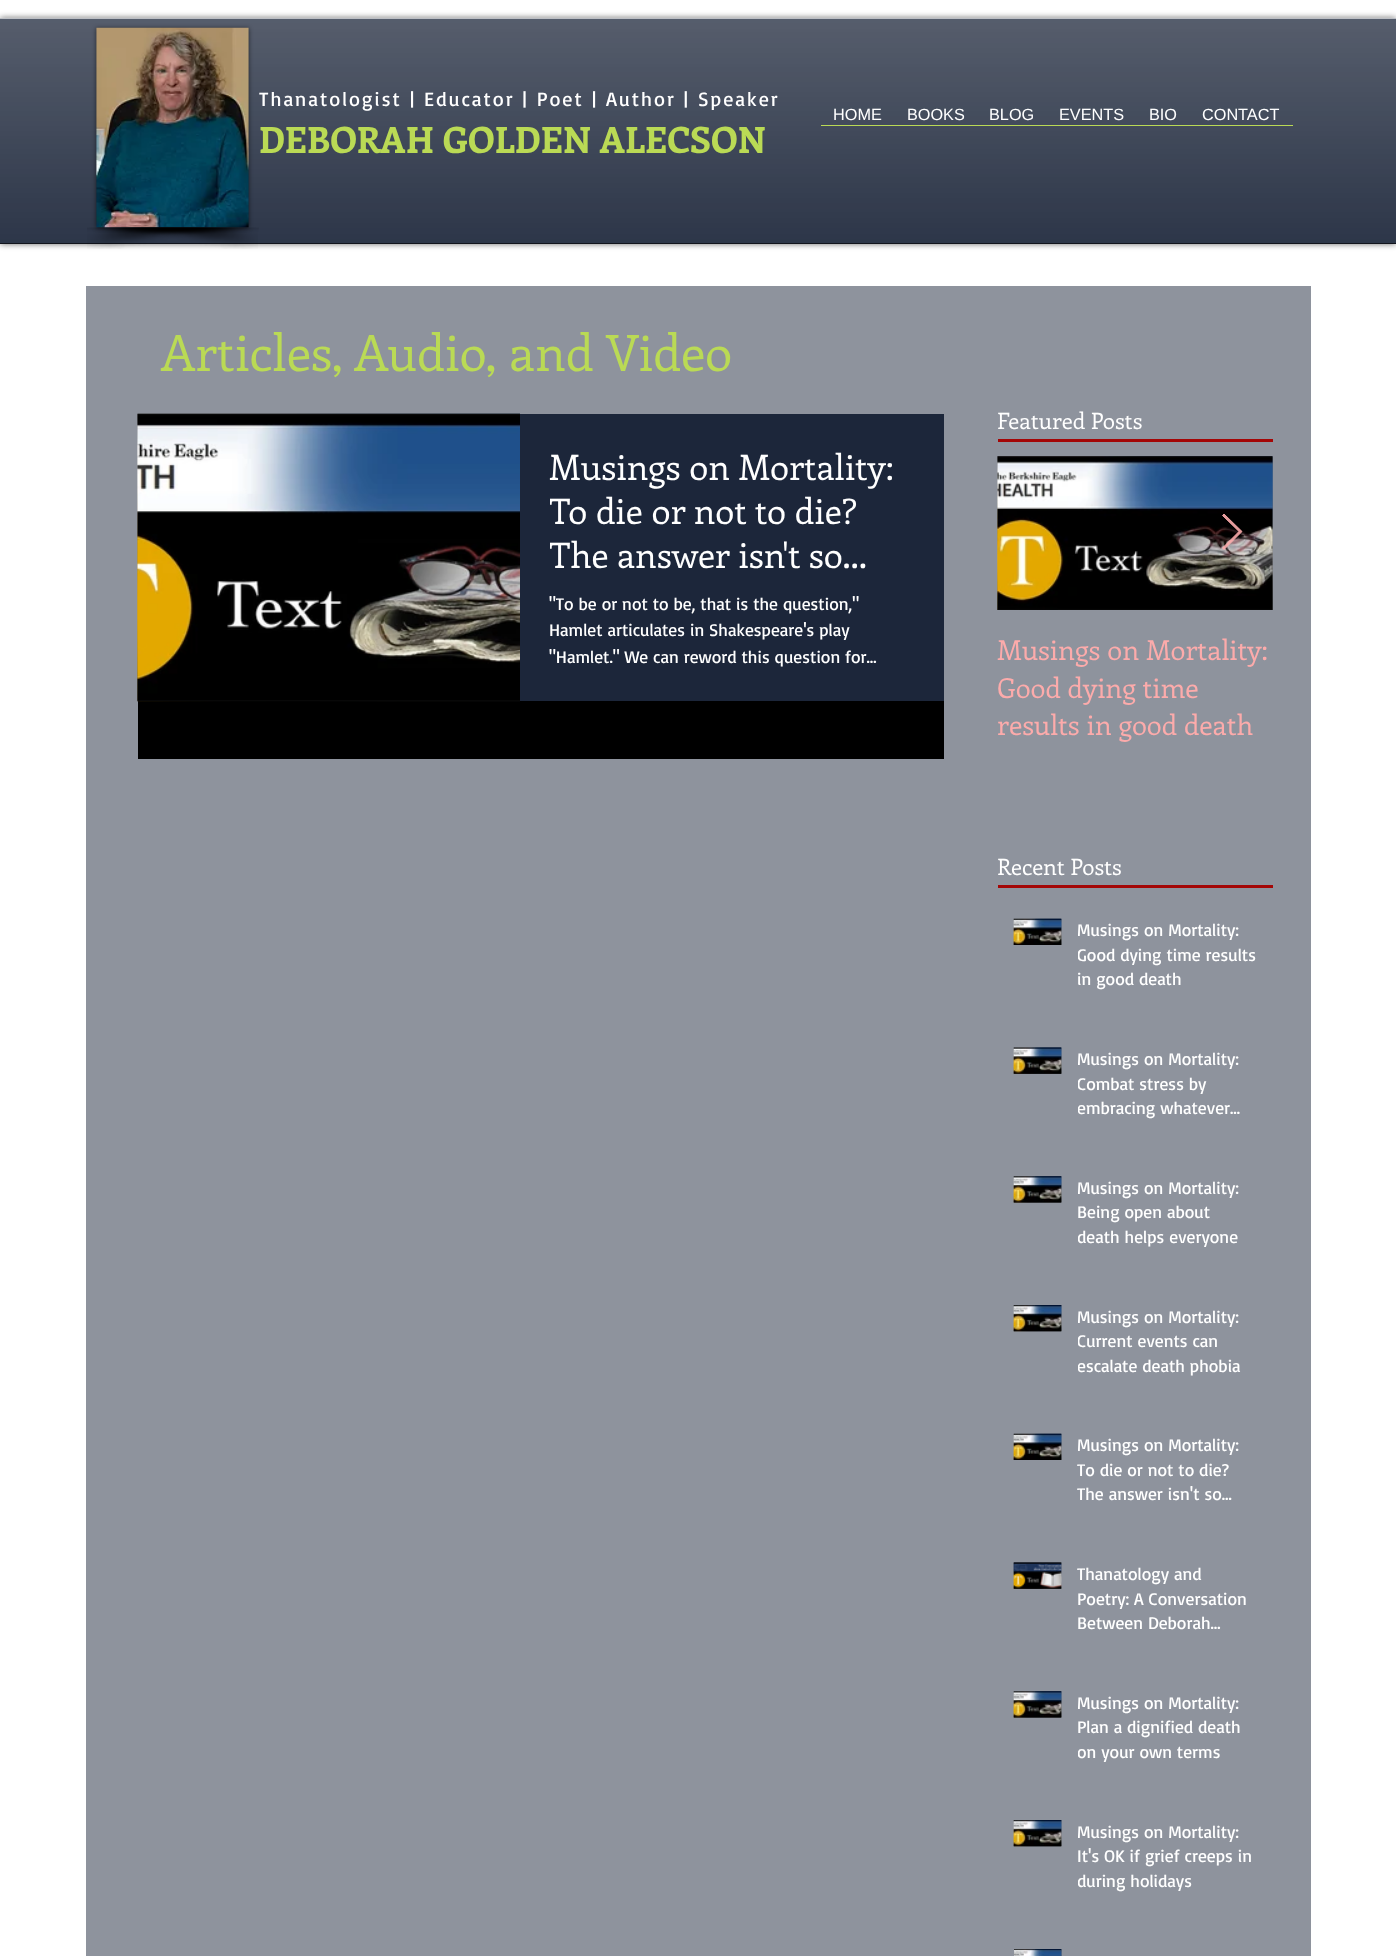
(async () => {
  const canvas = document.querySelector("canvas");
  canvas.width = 1396;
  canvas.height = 1956;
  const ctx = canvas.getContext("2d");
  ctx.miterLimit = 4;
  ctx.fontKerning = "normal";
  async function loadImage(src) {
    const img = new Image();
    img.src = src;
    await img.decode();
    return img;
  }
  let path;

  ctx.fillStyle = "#ffffff";
  ctx.fillRect(0, 0, 1396, 1956);
  ctx.fillStyle = "rgba(0, 0, 0, 0.6)";
  ctx.filter = "blur(3px)";
  ctx.beginPath();
  ctx.rect(0, 18, 1396, 226);
  ctx.fill();
  ctx.filter = "none";
  ctx.fillStyle = "#1c263a";
  ctx.fillRect(0, 19, 1396, 224);
  ctx.drawImage(await loadImage("img/1.png"), 0, 17, 1396, 226);
  ctx.fillStyle = "#11141c";
  ctx.fillRect(0, 243, 1396, 1);
  ctx.fillStyle = "#bbbec4";
  ctx.fillRect(0, 18, 1396, 1);
  ctx.fillStyle = "rgba(0, 0, 0, 0.5)";
  ctx.filter = "blur(2px)";
  ctx.beginPath();
  ctx.rect(96, 28, 153, 200);
  ctx.fill();
  ctx.filter = "none";
  ctx.drawImage(await loadImage("img/2.png"), 96, 27, 153, 201);
  ctx.drawImage(await loadImage("img/3.png"), 87, 227, 172, 22);
  ctx.drawImage(await loadImage("img/4.png"), 87, 227, 171, 22);
  for (const [x, y, w, h, color] of [
    [821, 125, 472, 1, "#bada55"],
    [86, 286, 1225, 1670, "#8e939d"],
    [998, 439, 275, 3, "#a40606"],
    [138, 701, 806, 58, "#000000"],
  ]) {
    ctx.fillStyle = color;
    ctx.fillRect(x, y, w, h);
  }
  ctx.drawImage(await loadImage("img/5.png"), 137, 413, 383, 289);
  ctx.drawImage(await loadImage("img/6.png"), 137, 413, 383, 289);
  ctx.fillStyle = "#1c263a";
  ctx.fillRect(520, 414, 424, 287);
  ctx.drawImage(await loadImage("img/7.png"), 997, 456, 276, 154);
  ctx.drawImage(await loadImage("img/8.png"), 997, 456, 276, 154);
  ctx.fillStyle = "rgba(252, 171, 171, 0.9)";
  path = new Path2D("M1222.5 515.5L1224 514L1242 531.5L1224 549.5L1222.5 548L1239 531.5Z");
  ctx.fill(path);
  ctx.strokeStyle = "rgba(252, 171, 171, 0.9)";
  ctx.stroke(path);
  ctx.fillStyle = "#a40606";
  ctx.fillRect(998, 885, 275, 3);
  ctx.drawImage(await loadImage("img/9.png"), 1013, 918, 49, 27);
  ctx.drawImage(await loadImage("img/10.png"), 1013, 918, 49, 27);
  ctx.drawImage(await loadImage("img/11.png"), 1013, 1047, 49, 27);
  ctx.drawImage(await loadImage("img/12.png"), 1013, 1047, 49, 27);
  ctx.drawImage(await loadImage("img/13.png"), 1013, 1176, 49, 27);
  ctx.drawImage(await loadImage("img/14.png"), 1013, 1176, 49, 27);
  ctx.drawImage(await loadImage("img/15.png"), 1013, 1305, 49, 27);
  ctx.drawImage(await loadImage("img/16.png"), 1013, 1305, 49, 27);
  ctx.drawImage(await loadImage("img/9.png"), 1013, 1433, 49, 27);
  ctx.drawImage(await loadImage("img/10.png"), 1013, 1433, 49, 27);
  ctx.drawImage(await loadImage("img/17.png"), 1013, 1562, 49, 27);
  ctx.drawImage(await loadImage("img/18.png"), 1013, 1562, 49, 27);
  ctx.drawImage(await loadImage("img/13.png"), 1013, 1691, 49, 27);
  ctx.drawImage(await loadImage("img/14.png"), 1013, 1691, 49, 27);
  ctx.drawImage(await loadImage("img/15.png"), 1013, 1820, 49, 27);
  ctx.drawImage(await loadImage("img/16.png"), 1013, 1820, 49, 27);
  ctx.drawImage(await loadImage("img/19.png"), 1014, 1949, 47, 7);
  ctx.drawImage(await loadImage("img/20.png"), 1061, 1949, 1, 7);
  ctx.letterSpacing = "2px";
  ctx.font = "20px Basic";
  ctx.fillStyle = "#ffffff";
  ctx.fillText("Thanatologist | Educator | Poet | Author | Speaker", 259, 106);
  ctx.letterSpacing = "0px";
  ctx.font = "bold 36.25px Enriqueta";
  ctx.fillStyle = "#bada55";
  ctx.fillText("DEBORAH GOLDEN ALECSON", 259, 153);
  ctx.font = "16.25px Liberation Sans";
  ctx.fillStyle = "#ffffff";
  for (const [text, x, y] of [
    ["HOME", 833, 120],
    ["BOOKS", 907, 120],
    ["BLOG", 989, 120],
    ["EVENTS", 1059, 120],
    ["BIO", 1149, 120],
    ["CONTACT", 1202, 120],
  ]) {
    ctx.fillText(text, x, y);
  }
  ctx.font = "50px Enriqueta";
  ctx.fillStyle = "#bada55";
  ctx.fillText("Articles, Audio, and Video", 161, 371);
  ctx.font = "22.5px Enriqueta";
  ctx.fillStyle = "#ffffff";
  ctx.fillText("Featured Posts", 997, 429);
  ctx.font = "35px Enriqueta";
  ctx.fillText("Musings on Mortality:", 549, 480);
  ctx.save();
  ctx.beginPath();
  ctx.rect(550, 444, 364, 131);
  ctx.clip();
  ctx.fillText("To die or not to die?", 549, 524);
  ctx.fillText("The answer isn't so…", 549, 568);
  ctx.restore();
  ctx.font = "17.5px Basic";
  for (const [text, x, y] of [
    ["\"To be or not to be, that is the question,\"", 549, 610],
    ["Hamlet articulates in Shakespeare's play", 549, 636],
    ["\"Hamlet.\" We can reword this question for…", 549, 663],
  ]) {
    ctx.fillText(text, x, y);
  }
  ctx.font = "27.5px Enriqueta";
  ctx.fillStyle = "#fcabab";
  for (const [text, x, y] of [
    ["Musings on Mortality:", 997, 660],
    ["Good dying time", 997, 698],
    ["results in good death", 997, 735],
  ]) {
    ctx.fillText(text, x, y);
  }
  ctx.font = "22.5px Enriqueta";
  ctx.fillStyle = "#ffffff";
  ctx.fillText("Recent Posts", 997, 875);
  ctx.save();
  ctx.beginPath();
  ctx.rect(1078, 918, 180, 73);
  ctx.clip();
  ctx.font = "17.5px Basic";
  ctx.fillText("Musings on Mortality:", 1077, 936);
  ctx.fillText("Good dying time results", 1077, 961);
  ctx.restore();
  ctx.font = "17.5px Basic";
  ctx.fillText("in good death", 1077, 985);
  ctx.save();
  ctx.beginPath();
  ctx.rect(1078, 1046, 180, 74);
  ctx.clip();
  for (const [text, x, y] of [
    ["Musings on Mortality:", 1077, 1065],
    ["Combat stress by", 1077, 1090],
    ["embracing whatever…", 1077, 1114],
  ]) {
    ctx.fillText(text, x, y);
  }
  ctx.restore();
  ctx.save();
  ctx.beginPath();
  ctx.rect(1078, 1175, 180, 74);
  ctx.clip();
  ctx.fillText("Musings on Mortality:", 1077, 1194);
  ctx.restore();
  ctx.fillText("Being open about", 1077, 1218);
  ctx.save();
  ctx.beginPath();
  ctx.rect(1078, 1175, 180, 74);
  ctx.clip();
  ctx.fillText("death helps everyone", 1077, 1243);
  ctx.restore();
  ctx.save();
  ctx.beginPath();
  ctx.rect(1078, 1304, 180, 74);
  ctx.clip();
  for (const [text, x, y] of [
    ["Musings on Mortality:", 1077, 1323],
    ["Current events can", 1077, 1347],
    ["escalate death phobia", 1077, 1372],
  ]) {
    ctx.fillText(text, x, y);
  }
  ctx.restore();
  ctx.save();
  ctx.beginPath();
  ctx.rect(1078, 1433, 180, 73);
  ctx.clip();
  ctx.fillText("Musings on Mortality:", 1077, 1451);
  ctx.restore();
  for (const [text, x, y] of [
    ["To die or not to die?", 1077, 1476],
    ["The answer isn't so…", 1077, 1500],
    ["Thanatology and", 1077, 1580],
    ["Poetry: A Conversation", 1077, 1605],
    ["Between Deborah…", 1077, 1629],
  ]) {
    ctx.fillText(text, x, y);
  }
  ctx.save();
  ctx.beginPath();
  ctx.rect(1078, 1690, 180, 74);
  ctx.clip();
  ctx.fillText("Musings on Mortality:", 1077, 1709);
  ctx.restore();
  ctx.fillText("Plan a dignified death", 1077, 1733);
  ctx.save();
  ctx.beginPath();
  ctx.rect(1078, 1690, 180, 74);
  ctx.clip();
  ctx.fillText("on your own terms", 1077, 1758);
  ctx.restore();
  ctx.save();
  ctx.beginPath();
  ctx.rect(1078, 1819, 180, 74);
  ctx.clip();
  ctx.fillText("Musings on Mortality:", 1077, 1838);
  ctx.restore();
  ctx.fillText("It's OK if grief creeps in", 1077, 1862);
  ctx.save();
  ctx.beginPath();
  ctx.rect(1078, 1819, 180, 74);
  ctx.clip();
  ctx.fillText("during holidays", 1077, 1887);
  ctx.restore();
})();
